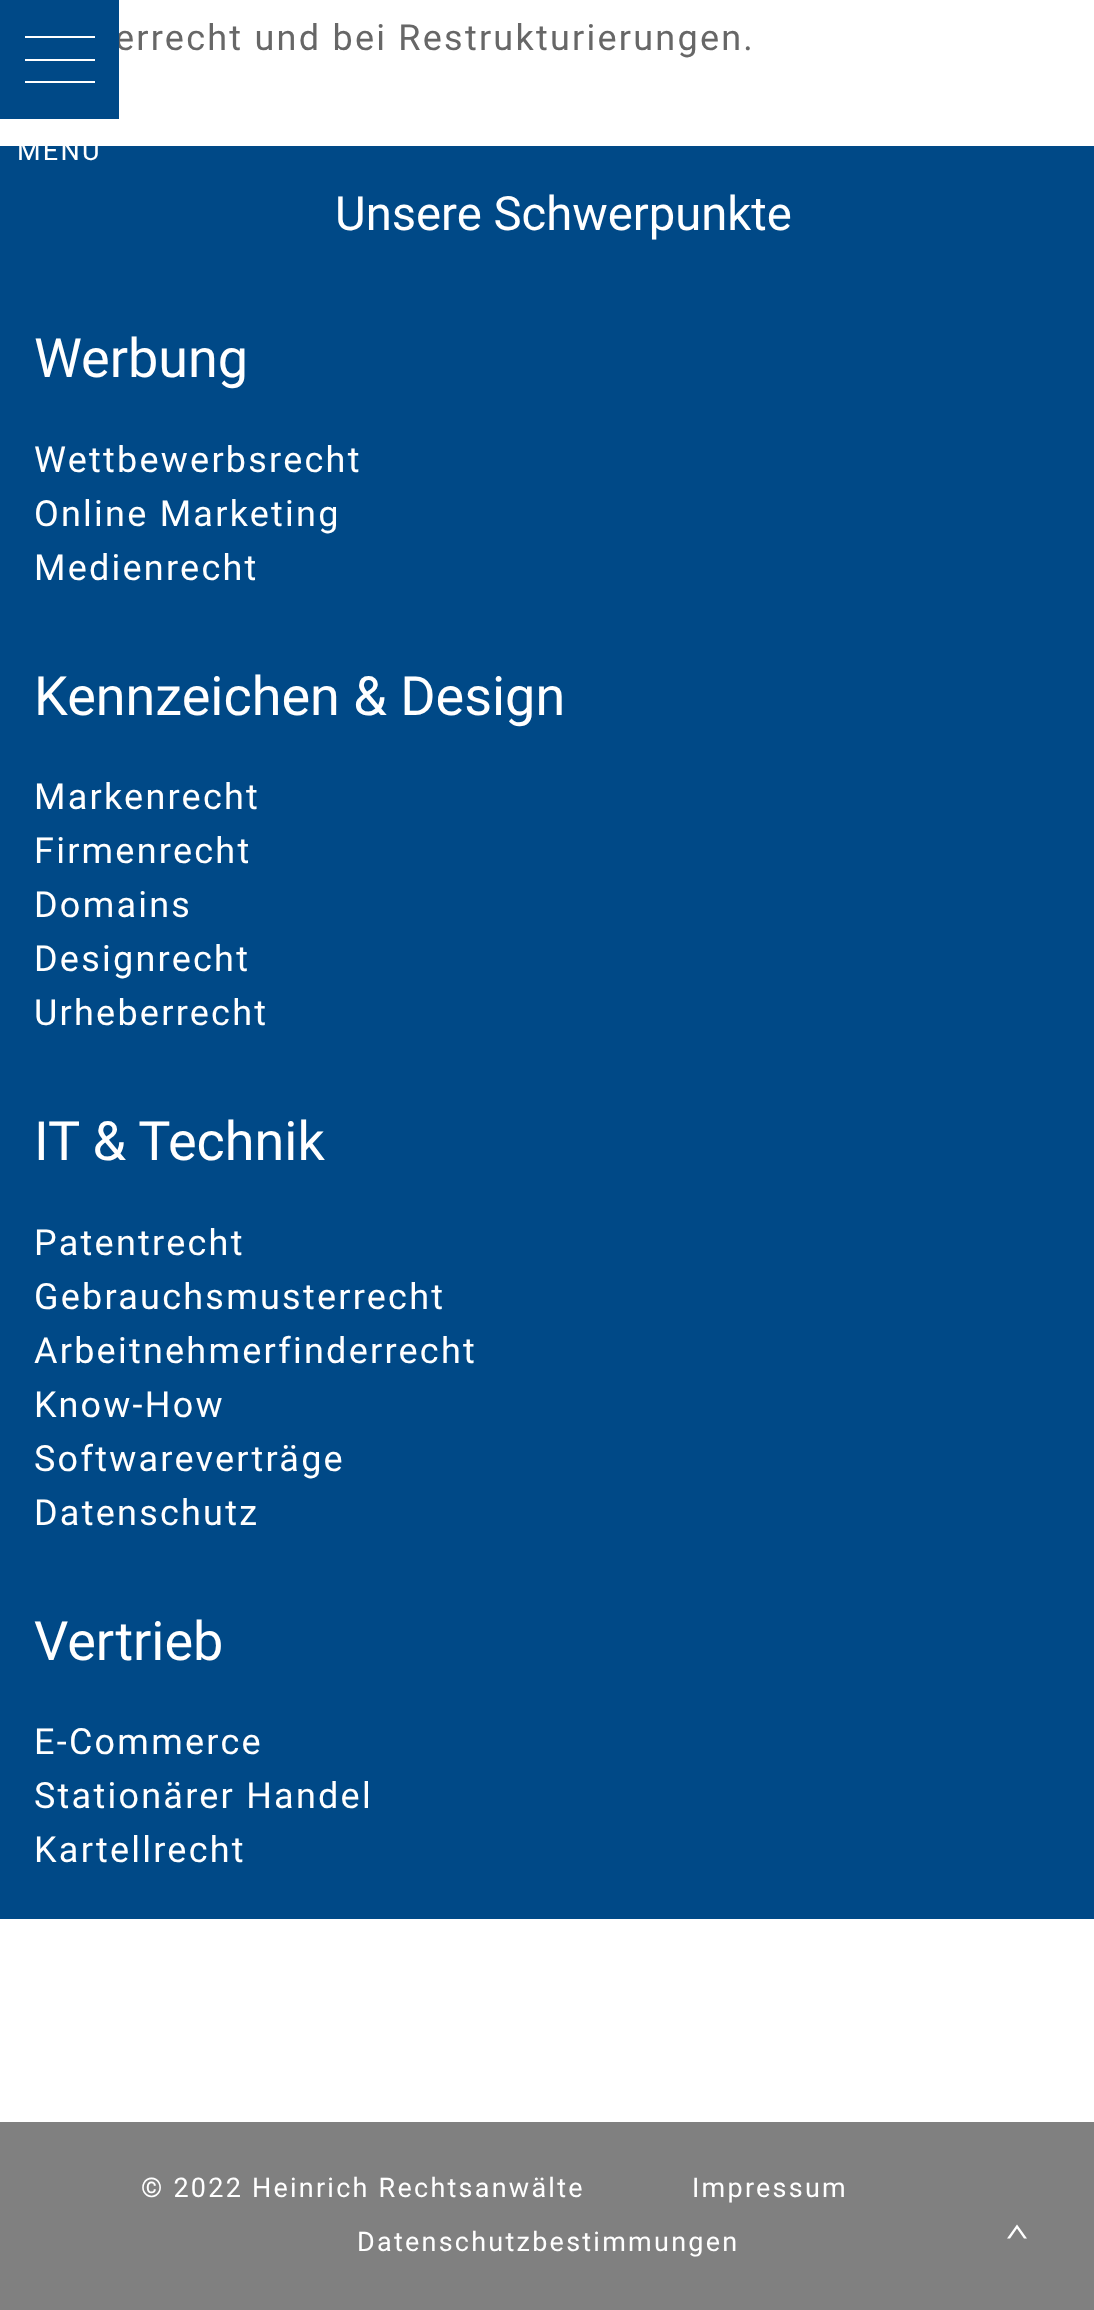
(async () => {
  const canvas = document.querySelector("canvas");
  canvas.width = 1094;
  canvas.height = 2310;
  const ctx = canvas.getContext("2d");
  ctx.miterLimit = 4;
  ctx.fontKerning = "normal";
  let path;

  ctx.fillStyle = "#808080";
  ctx.fillRect(0, 0, 1094, 2310);
  ctx.fillStyle = "#ffffff";
  ctx.fillRect(0, 0, 1094, 2122);
  ctx.fillStyle = "#004987";
  ctx.fillRect(0, 146, 1094, 1773);
  ctx.fillStyle = "#ffffff";
  path = new Path2D("M1007 2238.5H1010L1017 2228.5L1024 2238.5H1027L1017 2224.5Z");
  ctx.fill(path);
  ctx.letterSpacing = "2.25px";
  ctx.font = "36px Roboto";
  ctx.fillStyle = "#676767";
  ctx.fillText("errecht und bei Restrukturierungen.", 115, 50);
  ctx.letterSpacing = "0px";
  ctx.font = "47.25px Roboto";
  ctx.fillStyle = "#ffffff";
  ctx.fillText("Unsere Schwerpunkte", 335, 230);
  ctx.font = "54px Roboto";
  ctx.fillText("Werbung", 34, 377);
  ctx.letterSpacing = "2.25px";
  ctx.font = "36px Roboto";
  for (const [text, x, y] of [
    ["Wettbewerbsrecht", 34, 472],
    ["Online Marketing", 34, 526],
    ["Medienrecht", 34, 580],
  ]) {
    ctx.fillText(text, x, y);
  }
  ctx.letterSpacing = "0px";
  ctx.font = "54px Roboto";
  ctx.fillText("Kennzeichen & Design", 34, 715);
  ctx.letterSpacing = "2.25px";
  ctx.font = "36px Roboto";
  for (const [text, x, y] of [
    ["Markenrecht", 34, 809],
    ["Firmenrecht", 34, 863],
    ["Domains", 34, 917],
    ["Designrecht", 34, 971],
    ["Urheberrecht", 34, 1025],
  ]) {
    ctx.fillText(text, x, y);
  }
  ctx.letterSpacing = "0px";
  ctx.font = "54px Roboto";
  ctx.fillText("IT & Technik", 34, 1160);
  ctx.letterSpacing = "2.25px";
  ctx.font = "36px Roboto";
  for (const [text, x, y] of [
    ["Patentrecht", 34, 1255],
    ["Gebrauchsmusterrecht", 34, 1309],
    ["Arbeitnehmerfinderrecht", 34, 1363],
    ["Know-How", 34, 1417],
    ["Softwareverträge", 34, 1471],
    ["Datenschutz", 34, 1525],
  ]) {
    ctx.fillText(text, x, y);
  }
  ctx.letterSpacing = "0px";
  ctx.font = "54px Roboto";
  ctx.fillText("Vertrieb", 34, 1660);
  ctx.letterSpacing = "2.25px";
  ctx.font = "36px Roboto";
  for (const [text, x, y] of [
    ["E-Commerce", 34, 1754],
    ["Stationärer Handel", 34, 1808],
    ["Kartellrecht", 34, 1862],
  ]) {
    ctx.fillText(text, x, y);
  }
  ctx.font = "27px Roboto";
  for (const [text, x, y] of [
    ["© 2022 Heinrich Rechtsanwälte", 141, 2197],
    ["Impressum", 692, 2197],
    ["Datenschutzbestimmungen", 357, 2251],
  ]) {
    ctx.fillText(text, x, y);
  }
  for (const [x, y, w, h, color] of [
    [0, 0, 119, 119, "#004987"],
    [25, 59, 70, 2, "#ffffff"],
    [25, 36, 70, 2, "#ffffff"],
    [25, 81, 70, 2, "#ffffff"],
  ]) {
    ctx.fillStyle = color;
    ctx.fillRect(x, y, w, h);
  }
  ctx.fillText("MENÜ", 17, 160);
})();
